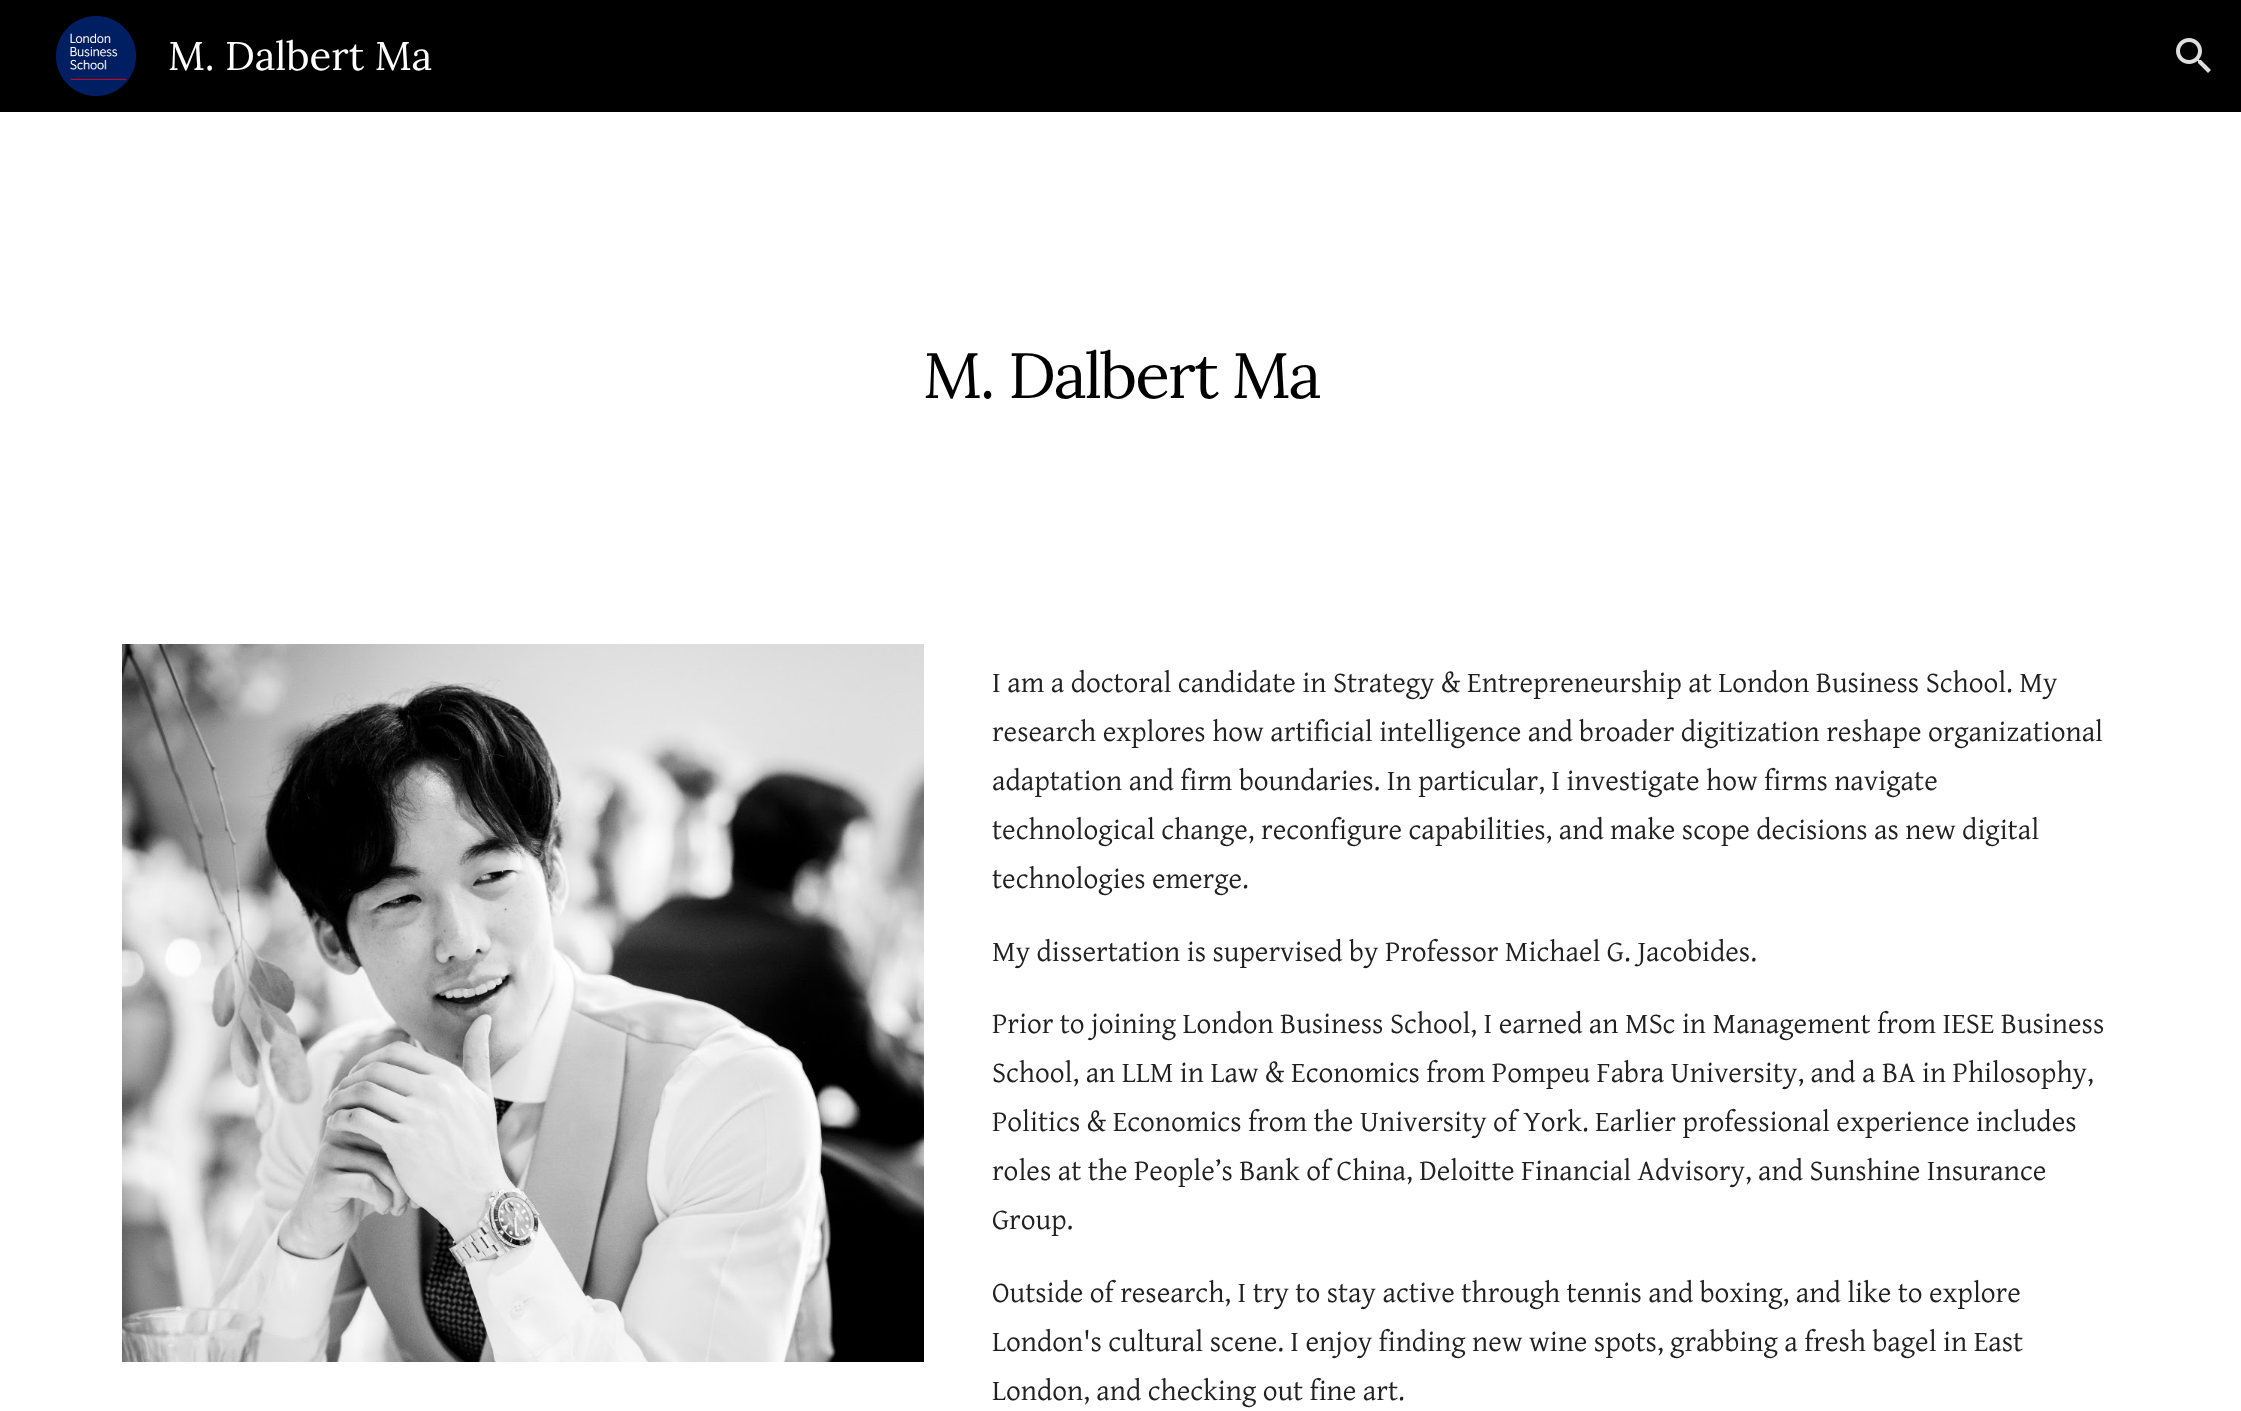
(async () => {
  const canvas = document.querySelector("canvas");
  canvas.width = 2241;
  canvas.height = 1411;
  const ctx = canvas.getContext("2d");
  ctx.miterLimit = 4;
  ctx.fontKerning = "normal";
  async function loadImage(src) {
    const img = new Image();
    img.src = src;
    await img.decode();
    return img;
  }

  ctx.fillStyle = "#ffffff";
  ctx.fillRect(0, 0, 2241, 1411);
  ctx.fillStyle = "#000000";
  ctx.fillRect(0, 0, 2241, 112);
  ctx.drawImage(await loadImage("img/1.png"), 55, 16, 82, 80);
  ctx.drawImage(await loadImage("img/2.png"), 2176, 38, 35, 35);
  ctx.drawImage(await loadImage("img/3.png"), 122, 644, 802, 718);
  ctx.font = "40px Lora";
  ctx.fillStyle = "#ffffff";
  ctx.fillText("M. Dalbert Ma", 168, 70);
  ctx.letterSpacing = "-2px";
  ctx.font = "64px Lora";
  ctx.fillStyle = "#000000";
  ctx.fillText("M. Dalbert Ma", 923, 398);
  ctx.letterSpacing = "0px";
  ctx.font = "29.35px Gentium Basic";
  ctx.fillStyle = "#212121";
  for (const [text, x, y] of [
    ["I am a doctoral candidate in Strategy & Entrepreneurship at London Business School. My", 992, 692],
    ["research explores how artificial intelligence and broader digitization reshape organizational", 992, 741],
    ["adaptation and firm boundaries. In particular, I investigate how firms navigate", 992, 790],
    ["technological change, reconfigure capabilities, and make scope decisions as new digital", 992, 839],
    ["technologies emerge.", 992, 888],
    ["My dissertation is supervised by Professor Michael G. Jacobides.", 992, 961],
    ["Prior to joining London Business School, I earned an MSc in Management from IESE Business", 992, 1033],
    ["School, an LLM in Law & Economics from Pompeu Fabra University, and a BA in Philosophy,", 992, 1082],
    ["Politics & Economics from the University of York. Earlier professional experience includes", 992, 1131],
    ["roles at the People’s Bank of China, Deloitte Financial Advisory, and Sunshine Insurance", 992, 1180],
    ["Group.", 992, 1229],
    ["Outside of research, I try to stay active through tennis and boxing, and like to explore", 992, 1302],
    ["London's cultural scene. I enjoy finding new wine spots, grabbing a fresh bagel in East", 992, 1351],
    ["London, and checking out fine art.", 992, 1400],
  ]) {
    ctx.fillText(text, x, y);
  }
})();
